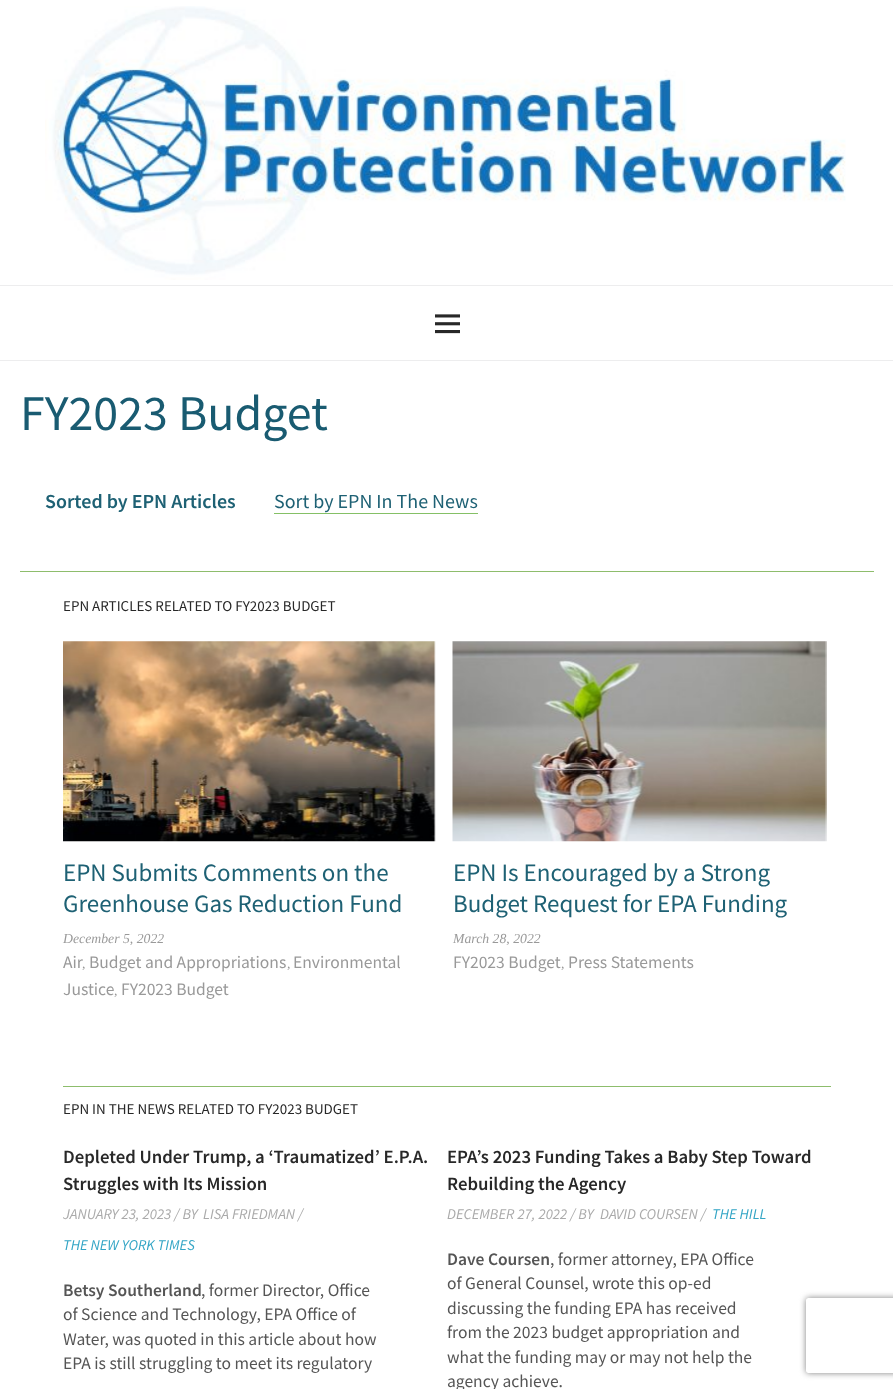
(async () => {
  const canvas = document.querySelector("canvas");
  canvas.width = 893;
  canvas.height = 1389;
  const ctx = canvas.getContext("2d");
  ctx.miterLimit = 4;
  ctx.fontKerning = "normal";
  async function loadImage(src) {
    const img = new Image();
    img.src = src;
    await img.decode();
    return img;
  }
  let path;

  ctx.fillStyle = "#ffffff";
  ctx.fillRect(0, 0, 893, 1389);
  ctx.fillStyle = "#ededee";
  ctx.fillRect(0, 285, 893, 1);
  ctx.drawImage(await loadImage("img/1.png"), 45, 6, 801, 274);
  ctx.fillRect(0, 360, 893, 1);
  ctx.drawImage(await loadImage("img/2.png"), 435, 314, 25, 20);
  ctx.fillStyle = "#8ebd6c";
  ctx.fillRect(20, 571, 854, 1);
  ctx.fillStyle = "#85c066";
  ctx.fillRect(274, 513, 204, 1);
  ctx.drawImage(await loadImage("img/3.png"), 63, 641, 373, 201);
  ctx.drawImage(await loadImage("img/4.png"), 452, 641, 375, 201);
  ctx.fillStyle = "#8dbd6c";
  ctx.fillRect(63, 1086, 768, 1);
  ctx.save();
  path = new Path2D("M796 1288H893V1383H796ZM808.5 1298H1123.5C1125 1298 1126 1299 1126 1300.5V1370.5C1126 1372 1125 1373 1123.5 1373H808.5C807 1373 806 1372 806 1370.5V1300.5C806 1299 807 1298 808.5 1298Z");
  ctx.clip(path, "evenodd");
  ctx.fillStyle = "#808080";
  ctx.filter = "blur(3px)";
  ctx.beginPath();
  ctx.roundRect(806, 1298, 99, 75, 2.5);
  ctx.fill();
  ctx.filter = "none";
  ctx.restore();
  ctx.font = "50px Source Sans Pro";
  ctx.fillStyle = "#195b71";
  ctx.fillText("FY2023 Budget", 20, 430);
  ctx.font = "600 20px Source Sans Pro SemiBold";
  ctx.fillStyle = "#1e6174";
  ctx.fillText("Sorted by EPN Articles", 45, 508);
  ctx.font = "20px Source Sans Pro";
  ctx.fillText("Sort by EPN In The News", 274, 508);
  ctx.font = "15px Source Sans Pro";
  ctx.fillStyle = "#282828";
  ctx.fillText("EPN ARTICLES RELATED TO FY2023 BUDGET", 63, 611);
  ctx.font = "25px Source Sans Pro";
  ctx.fillStyle = "#1e6174";
  ctx.fillText("EPN Submits Comments on the", 63, 881);
  ctx.fillText("Greenhouse Gas Reduction Fund", 63, 912);
  ctx.font = "italic 13.75px Liberation Serif";
  ctx.fillStyle = "#999999";
  ctx.fillText("December 5, 2022", 63, 943);
  ctx.font = "17.5px Source Sans Pro";
  ctx.fillText("Air", 63, 968);
  ctx.font = "italic 13.75px Liberation Serif";
  ctx.fillText(",", 82, 968);
  ctx.font = "17.5px Source Sans Pro";
  ctx.fillText("Budget and Appropriations", 89, 968);
  ctx.font = "italic 13.75px Liberation Serif";
  ctx.fillText(",", 287, 968);
  ctx.font = "17.5px Source Sans Pro";
  ctx.fillText("Environmental", 293, 968);
  ctx.fillText("Justice", 63, 995);
  ctx.font = "italic 13.75px Liberation Serif";
  ctx.fillText(",", 114, 995);
  ctx.font = "17.5px Source Sans Pro";
  ctx.fillText("FY2023 Budget", 121, 995);
  ctx.font = "25px Source Sans Pro";
  ctx.fillStyle = "#1e6174";
  ctx.fillText("EPN Is Encouraged by a Strong", 453, 881);
  ctx.fillText("Budget Request for EPA Funding", 453, 912);
  ctx.font = "italic 13.75px Liberation Serif";
  ctx.fillStyle = "#999999";
  ctx.fillText("March 28, 2022", 453, 943);
  ctx.font = "17.5px Source Sans Pro";
  ctx.fillText("FY2023 Budget", 453, 968);
  ctx.font = "italic 13.75px Liberation Serif";
  ctx.fillText(",", 561, 968);
  ctx.font = "17.5px Source Sans Pro";
  ctx.fillText("Press Statements", 568, 968);
  ctx.font = "15px Source Sans Pro";
  ctx.fillStyle = "#282828";
  ctx.fillText("EPN IN THE NEWS RELATED TO FY2023 BUDGET", 63, 1114);
  ctx.font = "600 18.75px Source Sans Pro SemiBold";
  ctx.fillText("Depleted Under Trump, a ‘Traumatized’ E.P.A.", 63, 1163);
  ctx.fillText("Struggles with Its Mission", 63, 1190);
  ctx.font = "italic 15px Source Sans Pro";
  ctx.fillStyle = "#aaaaaa";
  ctx.fillText("JANUARY 23, 2023 / BY", 63, 1219);
  ctx.fillText("LISA FRIEDMAN /", 203, 1219);
  ctx.fillStyle = "#33a5c5";
  ctx.fillText("THE NEW YORK TIMES", 63, 1250);
  ctx.font = "600 17.5px Source Sans Pro SemiBold";
  ctx.fillStyle = "#555555";
  ctx.fillText("Betsy Southerland", 63, 1296);
  ctx.font = "17.5px Source Sans Pro";
  for (const [text, x, y] of [
    [", former Director, Office", 201, 1296],
    ["of Science and Technology, EPA Office of", 63, 1320],
    ["Water, was quoted in this article about how", 63, 1345],
    ["EPA is still struggling to meet its regulatory", 63, 1369],
  ]) {
    ctx.fillText(text, x, y);
  }
  ctx.font = "600 18.75px Source Sans Pro SemiBold";
  ctx.fillStyle = "#282828";
  ctx.fillText("EPA’s 2023 Funding Takes a Baby Step Toward", 447, 1163);
  ctx.fillText("Rebuilding the Agency", 447, 1190);
  ctx.font = "italic 15px Source Sans Pro";
  ctx.fillStyle = "#aaaaaa";
  ctx.fillText("DECEMBER 27, 2022 / BY", 447, 1219);
  ctx.fillText("DAVID COURSEN /", 600, 1219);
  ctx.fillStyle = "#33a5c5";
  ctx.fillText("THE HILL", 712, 1219);
  ctx.font = "600 17.5px Source Sans Pro SemiBold";
  ctx.fillStyle = "#555555";
  ctx.fillText("Dave Coursen", 447, 1265);
  ctx.font = "17.5px Source Sans Pro";
  for (const [text, x, y] of [
    [", former attorney, EPA Office", 550, 1265],
    ["of General Counsel, wrote this op-ed", 447, 1289],
    ["discussing the funding EPA has received", 447, 1314],
    ["from the 2023 budget appropriation and", 447, 1338],
    ["what the funding may or may not help the", 447, 1363],
    ["agency achieve.", 447, 1387],
  ]) {
    ctx.fillText(text, x, y);
  }
})();
